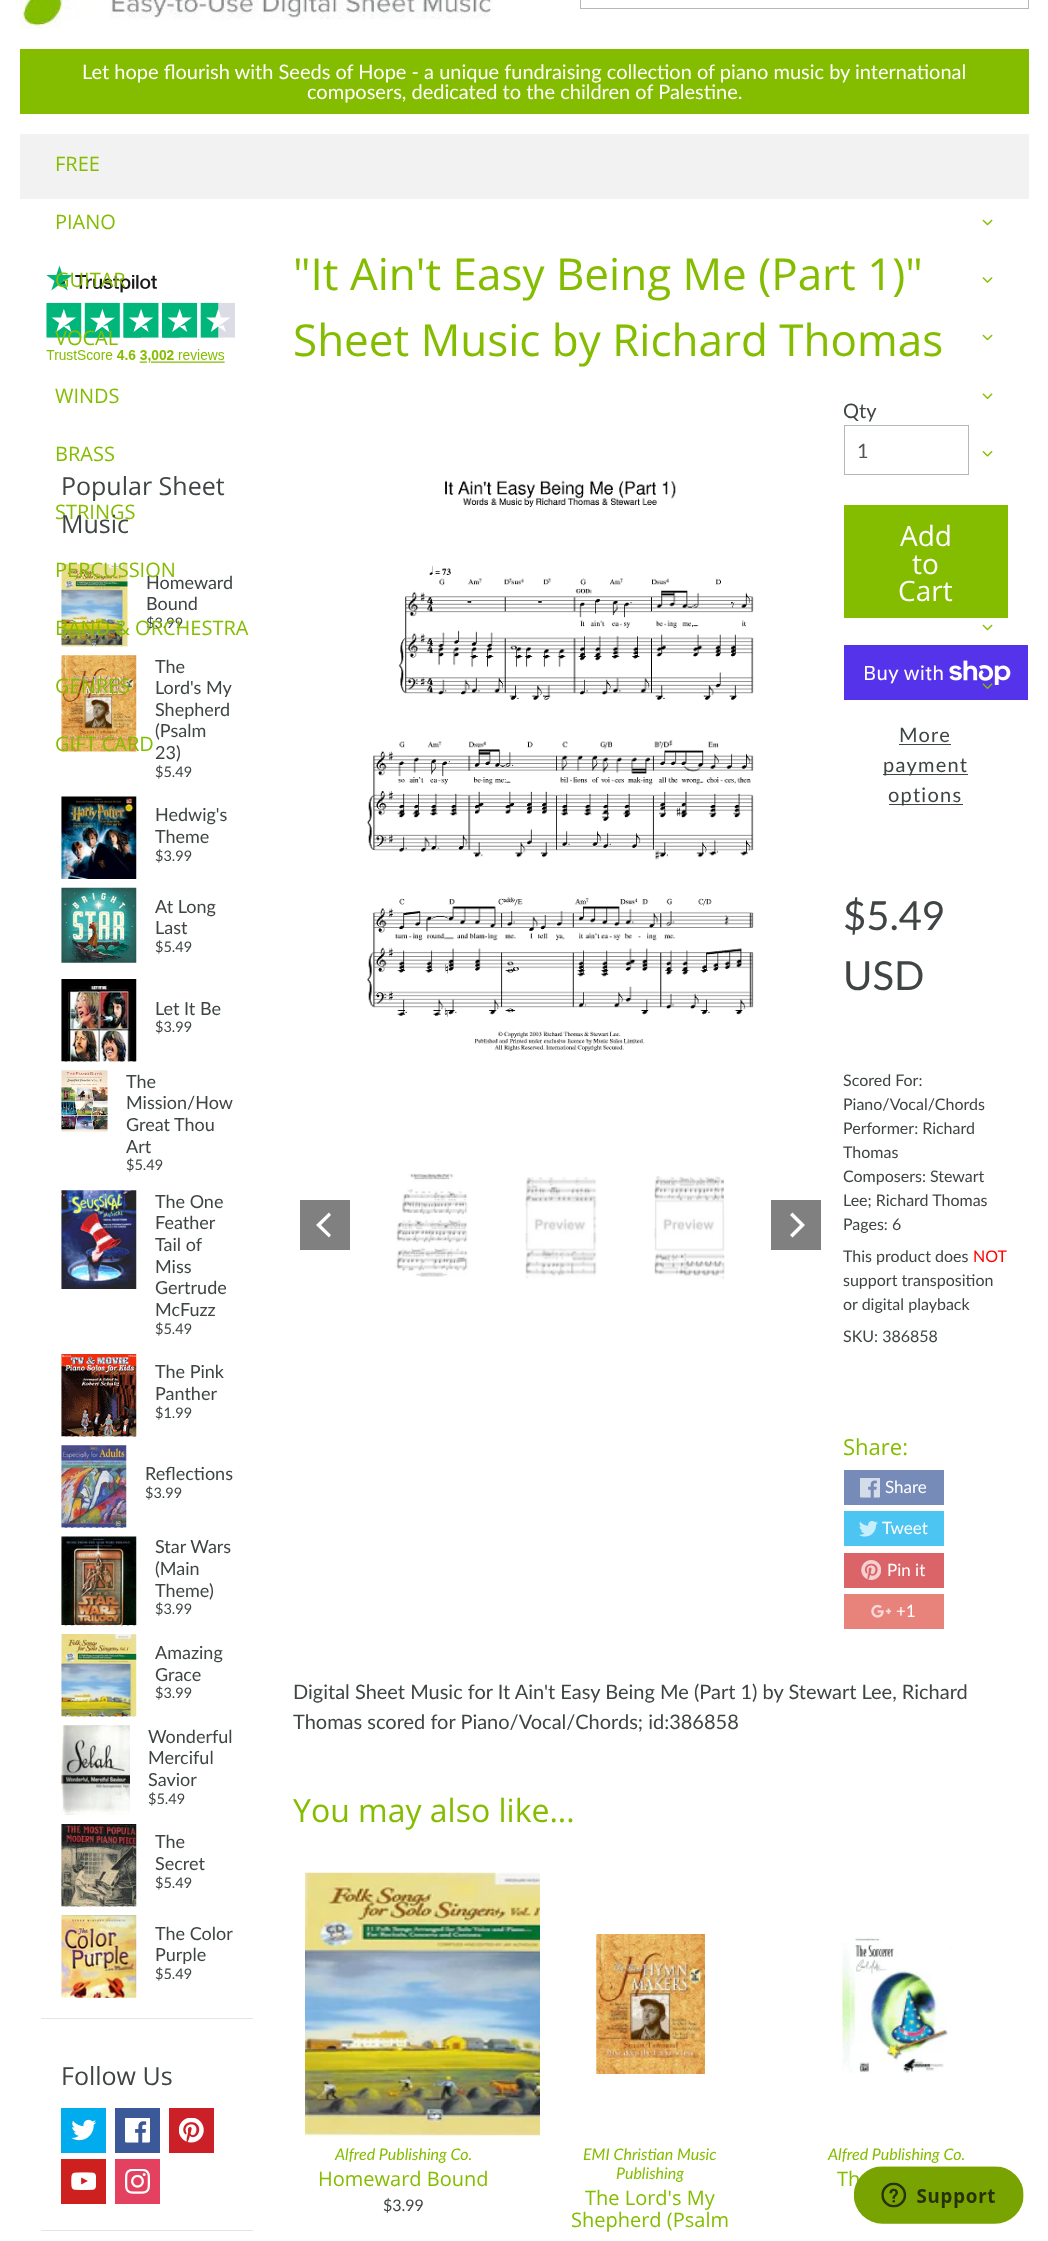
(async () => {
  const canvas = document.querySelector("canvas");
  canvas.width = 1048;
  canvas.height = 2241;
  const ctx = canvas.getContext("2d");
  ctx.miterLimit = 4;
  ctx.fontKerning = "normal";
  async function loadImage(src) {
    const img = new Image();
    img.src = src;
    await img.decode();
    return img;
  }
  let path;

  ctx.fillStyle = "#ffffff";
  ctx.fillRect(0, 0, 1048, 2241);
  ctx.drawImage(await loadImage("img/1.png"), 20, 0, 472, 29);
  ctx.strokeStyle = "#b2b9bd";
  ctx.strokeRect(580.5, -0.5, 448, 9);
  ctx.fillStyle = "#84bd00";
  ctx.fillRect(20, 49, 1009, 65);
  ctx.fillStyle = "#f2f2f2";
  ctx.fillRect(20, 134, 1009, 65);
  ctx.drawImage(await loadImage("img/2.png"), 982, 219, 11, 7);
  ctx.drawImage(await loadImage("img/3.png"), 982, 277, 11, 6);
  ctx.drawImage(await loadImage("img/2.png"), 982, 334, 11, 7);
  ctx.drawImage(await loadImage("img/4.png"), 982, 393, 11, 6);
  ctx.drawImage(await loadImage("img/5.png"), 982, 451, 11, 6);
  ctx.drawImage(await loadImage("img/2.png"), 982, 624, 11, 7);
  ctx.fillStyle = "#5433eb";
  ctx.fillRect(844, 645, 184, 55);
  ctx.drawImage(await loadImage("img/31.png"), 949, 660, 62, 25);
  ctx.drawImage(await loadImage("img/6.png"), 982, 683, 11, 6);
  ctx.drawImage(await loadImage("img/7.png"), 46, 265, 189, 98);
  ctx.fillStyle = "rgba(0, 0, 0, 0.1)";
  ctx.filter = "blur(0.5px)";
  ctx.beginPath();
  ctx.rect(41, 449, 212, 1570);
  ctx.fill();
  ctx.filter = "none";
  ctx.fillStyle = "#ffffff";
  ctx.fillRect(41, 448, 212, 1570);
  ctx.drawImage(await loadImage("img/8.png"), 61, 564, 67, 83);
  path = new Path2D("M61 647H232.5");
  ctx.strokeStyle = "#ffffff";
  ctx.lineWidth = 1.2;
  ctx.setLineDash([3.75, 2.45]);
  ctx.stroke(path);
  ctx.drawImage(await loadImage("img/9.png"), 61, 655, 76, 97);
  ctx.drawImage(await loadImage("img/10.png"), 61, 796, 76, 83);
  path = new Path2D("M61 879.5H232.5");
  ctx.stroke(path);
  ctx.drawImage(await loadImage("img/11.png"), 61, 887, 76, 76);
  ctx.drawImage(await loadImage("img/12.png"), 61, 979, 76, 83);
  path = new Path2D("M61 1062H232.5");
  ctx.stroke(path);
  ctx.drawImage(await loadImage("img/13.png"), 61, 1070, 47, 62);
  ctx.drawImage(await loadImage("img/14.png"), 61, 1190, 76, 99);
  ctx.drawImage(await loadImage("img/15.png"), 61, 1354, 76, 83);
  path = new Path2D("M61 1437H232.5");
  ctx.stroke(path);
  ctx.drawImage(await loadImage("img/16.png"), 61, 1445, 66, 83);
  path = new Path2D("M61 1528H232.5");
  ctx.stroke(path);
  ctx.drawImage(await loadImage("img/17.png"), 61, 1536, 76, 90);
  path = new Path2D("M61 1625.5H232.5");
  ctx.stroke(path);
  ctx.drawImage(await loadImage("img/18.png"), 61, 1634, 76, 83);
  path = new Path2D("M61 1717H232.5");
  ctx.stroke(path);
  ctx.drawImage(await loadImage("img/19.png"), 61, 1725, 69, 90);
  ctx.drawImage(await loadImage("img/20.png"), 61, 1824, 76, 83);
  path = new Path2D("M61 1907H232.5");
  ctx.stroke(path);
  ctx.drawImage(await loadImage("img/21.png"), 61, 1915, 76, 83);
  ctx.fillStyle = "rgba(0, 0, 0, 0.1)";
  ctx.filter = "blur(0.5px)";
  ctx.beginPath();
  ctx.rect(41, 2039, 212, 192);
  ctx.fill();
  ctx.filter = "none";
  ctx.fillStyle = "#ffffff";
  ctx.fillRect(41, 2038, 212, 192);
  ctx.fillStyle = "#00aced";
  ctx.fillRect(61, 2108, 45, 45);
  ctx.drawImage(await loadImage("img/22.png"), 71, 2119, 25, 22);
  ctx.fillStyle = "#3b5998";
  ctx.fillRect(115, 2108, 45, 45);
  ctx.drawImage(await loadImage("img/23.png"), 125, 2118, 25, 25);
  ctx.fillStyle = "#cb2027";
  ctx.fillRect(169, 2108, 45, 45);
  ctx.drawImage(await loadImage("img/24.png"), 179, 2118, 25, 25);
  ctx.fillStyle = "#cd201f";
  ctx.fillRect(61, 2159, 45, 45);
  ctx.drawImage(await loadImage("img/25.png"), 71, 2172, 25, 19);
  ctx.fillStyle = "#e4405f";
  ctx.fillRect(115, 2159, 45, 45);
  ctx.drawImage(await loadImage("img/26.png"), 125, 2169, 25, 25);
  ctx.drawImage(await loadImage("img/27.png"), 366, 480, 388, 571);
  ctx.drawImage(await loadImage("img/28.png"), 395, 1173, 73, 104);
  ctx.drawImage(await loadImage("img/29.png"), 525, 1177, 72, 102);
  ctx.drawImage(await loadImage("img/30.png"), 654, 1176, 71, 104);
  ctx.fillStyle = "#808080";
  ctx.fillRect(300, 1200, 50, 50);
  ctx.fillStyle = "#ffffff";
  path = new Path2D("M329 1212.5L331 1215L321 1225L331 1235L329 1237.5L316 1225Z");
  ctx.fill(path);
  ctx.fillStyle = "#808080";
  ctx.fillRect(771, 1200, 50, 50);
  ctx.fillStyle = "#ffffff";
  path = new Path2D("M792.5 1237.5L790 1235L800 1225L790 1215L792.5 1212.5L805 1225Z");
  ctx.fill(path);
  ctx.strokeStyle = "#b2b9bd";
  ctx.lineWidth = 1;
  ctx.setLineDash([]);
  ctx.strokeRect(844.5, 425.5, 124, 49);
  for (const [x, y, w, h, color] of [
    [844, 505, 164, 113, "#84bd00"],
    [899, 744, 52, 1, "#3f4444"],
    [883, 774, 85, 1, "#3f4444"],
    [889, 804, 74, 1, "#3f4444"],
    [844, 1470, 100, 35, "#768bb7"],
  ]) {
    ctx.fillStyle = color;
    ctx.fillRect(x, y, w, h);
  }
  ctx.drawImage(await loadImage("img/32.png"), 860, 1478, 20, 20);
  ctx.fillStyle = "#4dc5f2";
  ctx.fillRect(844, 1511, 100, 35);
  ctx.drawImage(await loadImage("img/33.png"), 859, 1521, 19, 16);
  ctx.fillStyle = "#db6468";
  ctx.fillRect(844, 1553, 100, 35);
  ctx.drawImage(await loadImage("img/34.png"), 861, 1560, 20, 20);
  ctx.fillStyle = "#e8837b";
  ctx.fillRect(844, 1594, 100, 35);
  ctx.drawImage(await loadImage("img/35.png"), 871, 1604, 20, 14);
  ctx.drawImage(await loadImage("img/36.png"), 305, 1872, 235, 264);
  ctx.drawImage(await loadImage("img/37.png"), 596, 1934, 109, 140);
  ctx.drawImage(await loadImage("img/38.png"), 842, 1937, 109, 136);
  ctx.font = "20px Lato";
  ctx.fillStyle = "#ffffff";
  ctx.fillText("Let hope flourish with Seeds of Hope - a unique fundraising collection of piano music by international", 82, 79);
  ctx.fillText("composers, dedicated to the children of Palestine.", 307, 99);
  ctx.font = "20px Open Sans";
  ctx.fillStyle = "#84bd00";
  for (const [text, x, y] of [
    ["FREE", 55, 171],
    ["PIANO", 55, 229],
    ["GUITAR", 55, 287],
    ["VOCAL", 55, 345],
    ["WINDS", 55, 403],
    ["BRASS", 55, 461],
    ["STRINGS", 55, 519],
    ["PERCUSSION", 55, 577],
    ["GENRES", 55, 693],
    ["GIFT CARD", 55, 751],
  ]) {
    ctx.fillText(text, x, y);
  }
  ctx.font = "25px Open Sans";
  ctx.fillStyle = "#3f4444";
  ctx.fillText("Popular Sheet", 61, 495);
  ctx.fillText("Music", 61, 533);
  ctx.font = "18px Lato";
  ctx.fillText("Homeward", 146, 589);
  ctx.fillText("Bound", 146, 610);
  ctx.font = "14.5px Lato";
  ctx.fillText("$3.99", 146, 628);
  ctx.font = "20px Open Sans";
  ctx.fillStyle = "#84bd00";
  ctx.fillText("BAND & ORCHESTRA", 55, 635);
  ctx.font = "18px Lato";
  ctx.fillStyle = "#3f4444";
  for (const [text, x, y] of [
    ["The", 155, 673],
    ["Lord's My", 155, 694],
    ["Shepherd", 155, 716],
    ["(Psalm", 155, 737],
    ["23)", 155, 759],
  ]) {
    ctx.fillText(text, x, y);
  }
  ctx.font = "14.5px Lato";
  ctx.fillText("$5.49", 155, 777);
  ctx.font = "18px Lato";
  ctx.fillText("Hedwig's", 155, 821);
  ctx.fillText("Theme", 155, 843);
  ctx.font = "14.5px Lato";
  ctx.fillText("$3.99", 155, 861);
  ctx.font = "18px Lato";
  ctx.fillText("At Long", 155, 913);
  ctx.fillText("Last", 155, 934);
  ctx.font = "14.5px Lato";
  ctx.fillText("$5.49", 155, 952);
  ctx.font = "18px Lato";
  ctx.fillText("Let It Be", 155, 1015);
  ctx.font = "14.5px Lato";
  ctx.fillText("$3.99", 155, 1032);
  ctx.font = "18px Lato";
  for (const [text, x, y] of [
    ["The", 126, 1088],
    ["Mission/How", 126, 1109],
    ["Great Thou", 126, 1131],
    ["Art", 126, 1153],
  ]) {
    ctx.fillText(text, x, y);
  }
  ctx.font = "14.5px Lato";
  ctx.fillText("$5.49", 126, 1170);
  ctx.font = "18px Lato";
  for (const [text, x, y] of [
    ["The One", 155, 1208],
    ["Feather", 155, 1229],
    ["Tail of", 155, 1251],
    ["Miss", 155, 1273],
    ["Gertrude", 155, 1294],
    ["McFuzz", 155, 1316],
  ]) {
    ctx.fillText(text, x, y);
  }
  ctx.font = "14.5px Lato";
  ctx.fillText("$5.49", 155, 1334);
  ctx.font = "18px Lato";
  ctx.fillText("The Pink", 155, 1378);
  ctx.fillText("Panther", 155, 1400);
  ctx.font = "14.5px Lato";
  ctx.fillText("$1.99", 155, 1418);
  ctx.font = "18px Lato";
  ctx.fillText("Reflections", 145, 1480);
  ctx.font = "14.5px Lato";
  ctx.fillText("$3.99", 145, 1498);
  ctx.font = "18px Lato";
  for (const [text, x, y] of [
    ["Star Wars", 155, 1553],
    ["(Main", 155, 1575],
    ["Theme)", 155, 1597],
  ]) {
    ctx.fillText(text, x, y);
  }
  ctx.font = "14.5px Lato";
  ctx.fillText("$3.99", 155, 1614);
  ctx.font = "18px Lato";
  ctx.fillText("Amazing", 155, 1659);
  ctx.fillText("Grace", 155, 1681);
  ctx.font = "14.5px Lato";
  ctx.fillText("$3.99", 155, 1698);
  ctx.font = "18px Lato";
  for (const [text, x, y] of [
    ["Wonderful", 148, 1743],
    ["Merciful", 148, 1764],
    ["Savior", 148, 1786],
  ]) {
    ctx.fillText(text, x, y);
  }
  ctx.font = "14.5px Lato";
  ctx.fillText("$5.49", 148, 1804);
  ctx.font = "18px Lato";
  ctx.fillText("The", 155, 1848);
  ctx.fillText("Secret", 155, 1870);
  ctx.font = "14.5px Lato";
  ctx.fillText("$5.49", 155, 1888);
  ctx.font = "18px Lato";
  ctx.fillText("The Color", 155, 1940);
  ctx.fillText("Purple", 155, 1961);
  ctx.font = "14.5px Lato";
  ctx.fillText("$5.49", 155, 1979);
  ctx.font = "25px Open Sans";
  ctx.fillText("Follow Us", 61, 2085);
  ctx.font = "44px Open Sans";
  ctx.fillStyle = "#84bd00";
  ctx.fillText("\"It Ain't Easy Being Me (Part 1)\"", 293, 290);
  ctx.fillText("Sheet Music by Richard Thomas", 293, 356);
  ctx.font = "20px Lato";
  ctx.fillStyle = "#3f4444";
  ctx.fillText("Qty", 843, 418);
  ctx.fillStyle = "#555555";
  ctx.fillText("1", 857, 458);
  ctx.font = "28px Open Sans";
  ctx.fillStyle = "#ffffff";
  for (const [text, x, y] of [
    ["Add", 900, 546],
    ["to", 912, 574],
    ["Cart", 898, 601],
  ]) {
    ctx.fillText(text, x, y);
  }
  ctx.font = "20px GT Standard";
  ctx.fillText("Buy with", 863, 680);
  ctx.letterSpacing = "1.25px";
  ctx.font = "20px Lato";
  ctx.fillStyle = "#3f4444";
  for (const [text, x, y] of [
    ["More", 899, 742],
    ["payment", 883, 772],
    ["options", 888, 802],
  ]) {
    ctx.fillText(text, x, y);
  }
  ctx.letterSpacing = "0px";
  ctx.font = "40px Lato";
  ctx.fillText("$5.49", 843, 930);
  ctx.fillText("USD", 843, 990);
  ctx.font = "16px Lato";
  for (const [text, x, y] of [
    ["Scored For:", 843, 1086],
    ["Piano/Vocal/Chords", 843, 1110],
    ["Performer: Richard", 843, 1134],
    ["Thomas", 843, 1158],
    ["Composers: Stewart", 843, 1182],
    ["Lee; Richard Thomas", 843, 1206],
    ["Pages: 6", 843, 1230],
    ["This product does", 843, 1262],
  ]) {
    ctx.fillText(text, x, y);
  }
  ctx.fillStyle = "#ff0000";
  ctx.fillText("NOT", 973, 1262);
  ctx.fillStyle = "#3f4444";
  for (const [text, x, y] of [
    ["support transposition", 843, 1286],
    ["or digital playback", 843, 1310],
    ["SKU: 386858", 843, 1342],
  ]) {
    ctx.fillText(text, x, y);
  }
  ctx.font = "22px Open Sans";
  ctx.fillStyle = "#84bd00";
  ctx.fillText("Share:", 843, 1455);
  ctx.font = "17px Lato";
  ctx.fillStyle = "#ffffff";
  for (const [text, x, y] of [
    ["Share", 885, 1493],
    ["Tweet", 882, 1534],
    ["Pin it", 887, 1576],
    ["+1", 896, 1617],
  ]) {
    ctx.fillText(text, x, y);
  }
  ctx.font = "20px Lato";
  ctx.fillStyle = "#3f4444";
  ctx.fillText("Digital Sheet Music for It Ain't Easy Being Me (Part 1) by Stewart Lee, Richard", 293, 1699);
  ctx.fillText("Thomas scored for Piano/Vocal/Chords; id:386858", 293, 1729);
  ctx.font = "32px Open Sans";
  ctx.fillStyle = "#84bd00";
  ctx.fillText("You may also like...", 293, 1822);
  ctx.font = "italic 16px Lato";
  ctx.fillText("Alfred Publishing Co.", 335, 2160);
  ctx.font = "20px Open Sans";
  ctx.fillText("Homeward Bound", 318, 2186);
  ctx.font = "16px Lato";
  ctx.fillStyle = "#3f4444";
  ctx.fillText("$3.99", 383, 2211);
  ctx.font = "italic 16px Lato";
  ctx.fillStyle = "#84bd00";
  ctx.fillText("EMI Christian Music", 583, 2160);
  ctx.fillText("Publishing", 616, 2179);
  ctx.font = "20px Open Sans";
  ctx.fillText("The Lord's My", 585, 2205);
  ctx.fillText("Shepherd (Psalm", 571, 2227);
  ctx.font = "italic 16px Lato";
  ctx.fillText("Alfred Publishing Co.", 828, 2160);
  ctx.font = "20px Open Sans";
  ctx.fillText("Th", 837, 2186);
  ctx.drawImage(await loadImage("img/39.png"), 854, 2166, 170, 58);
})();
